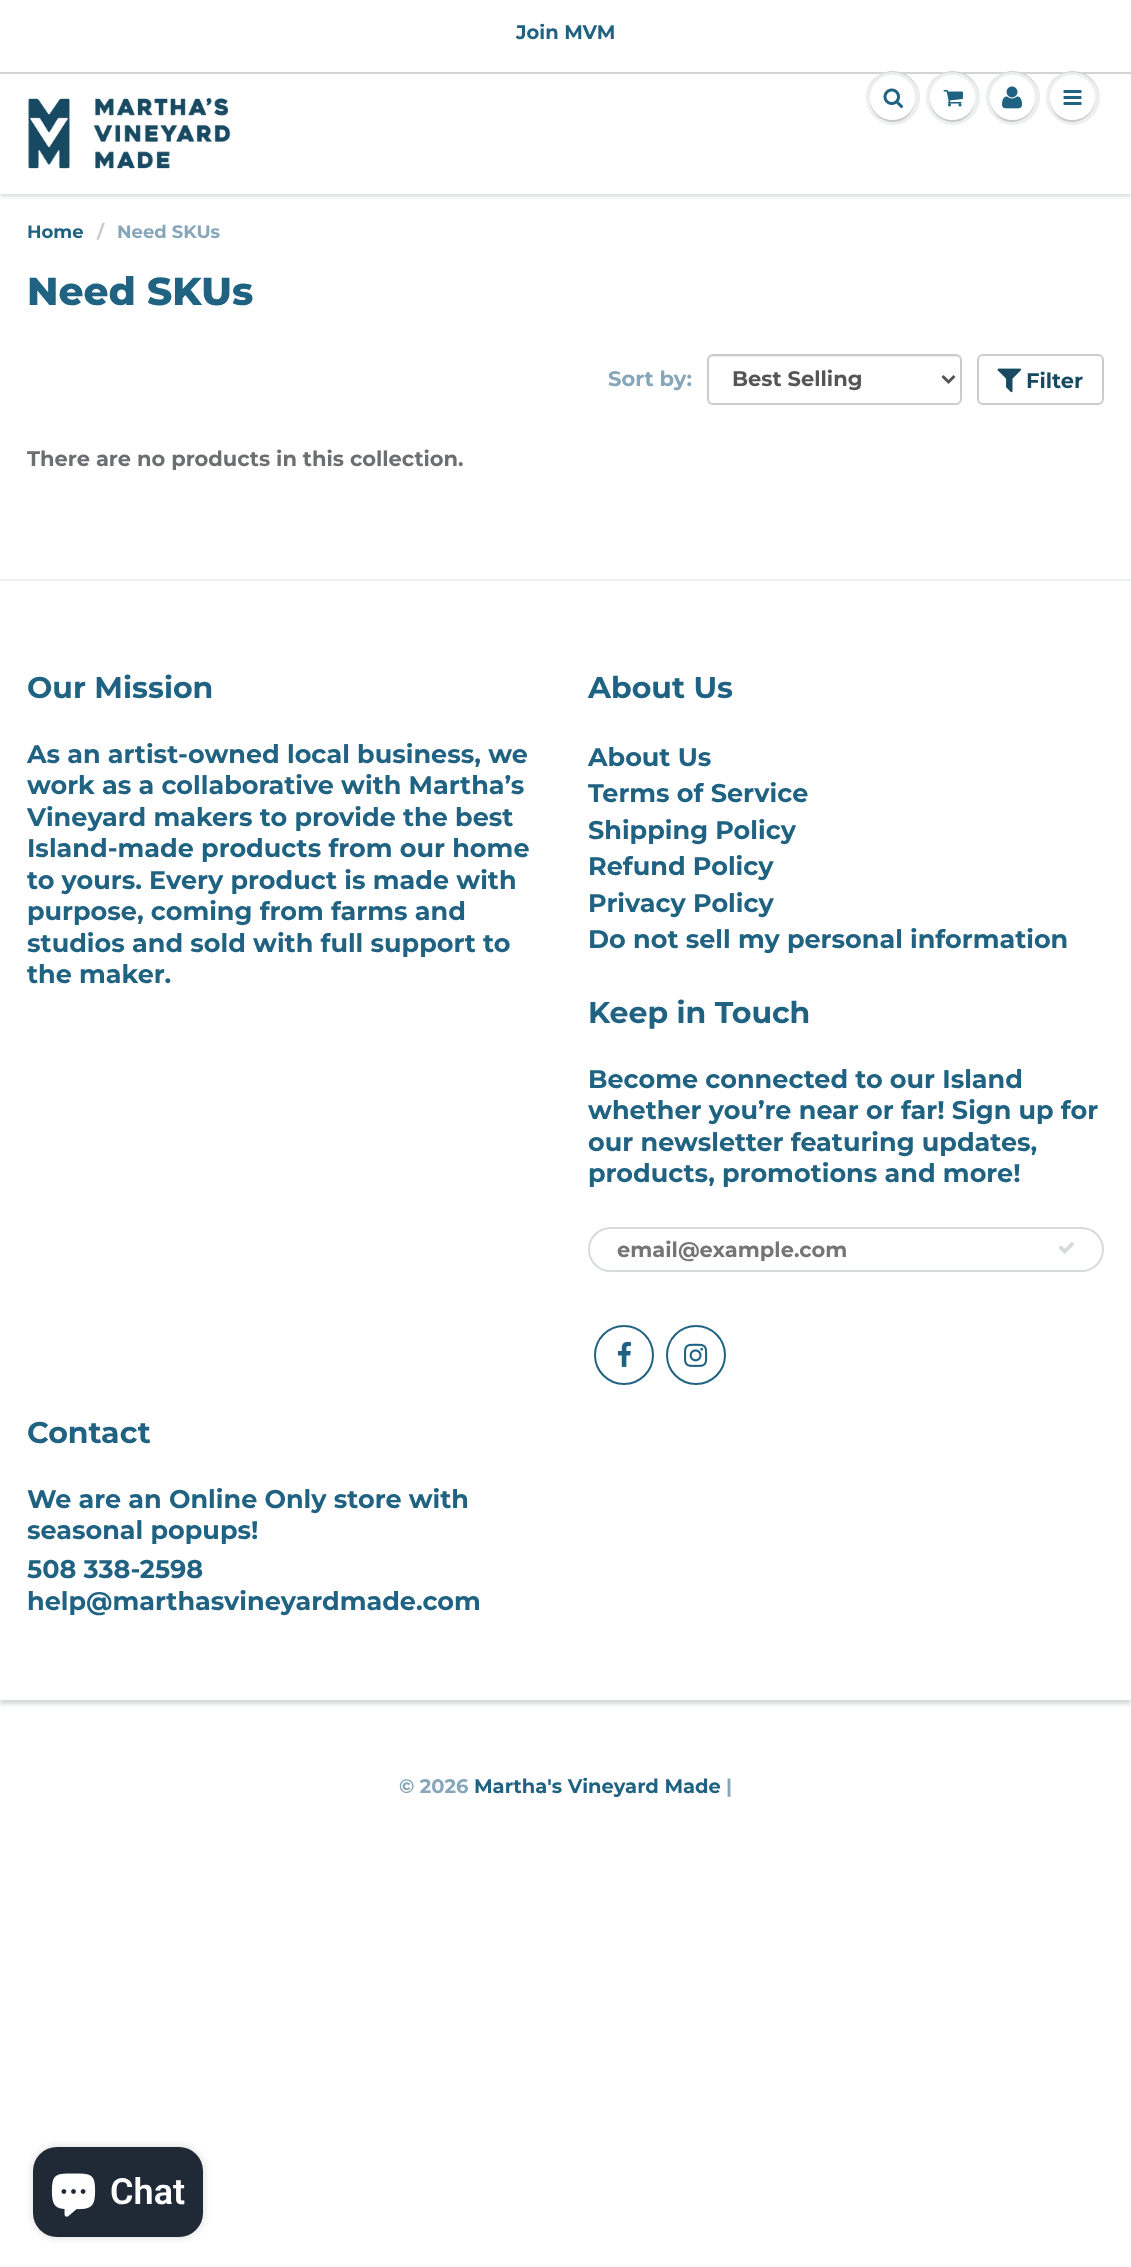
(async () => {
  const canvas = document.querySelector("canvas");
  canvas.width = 1131;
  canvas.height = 2267;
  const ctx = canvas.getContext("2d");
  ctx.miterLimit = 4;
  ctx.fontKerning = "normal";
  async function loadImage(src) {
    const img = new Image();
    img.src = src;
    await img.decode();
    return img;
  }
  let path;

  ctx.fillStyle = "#ffffff";
  ctx.fillRect(0, 0, 1131, 2267);
  ctx.fillStyle = "rgba(11, 25, 28, 0.12)";
  ctx.filter = "blur(1.5px)";
  ctx.beginPath();
  ctx.rect(0, 75, 1131, 122);
  ctx.fill();
  ctx.filter = "none";
  ctx.fillStyle = "#ffffff";
  ctx.fillRect(0, 74, 1131, 120);
  ctx.fillStyle = "#d1d3d4";
  ctx.fillRect(0, 72, 1131, 2);
  ctx.drawImage(await loadImage("img/1.png"), 28, 97, 203, 72);
  ctx.fillStyle = "#edefef";
  ctx.beginPath();
  ctx.arc(893, 98, 27, 0, Math.PI * 2);
  ctx.fill();
  ctx.fillStyle = "#c9cbcb";
  path = new Path2D("M892 72C907 72 920 84 920 99C920 93 918 87 915 83C900 61 866 72 866 98C866 84 878 72 892 72Z");
  ctx.fill(path);
  path = new Path2D("M870 98C869 121 899 131 911 112C914 108 915 103 915 98C914 127 871 127 870 98Z");
  ctx.fill(path);
  ctx.fillStyle = "#ffffff";
  ctx.beginPath();
  ctx.arc(892.5, 97.5, 22.5, 0, Math.PI * 2);
  ctx.fill();
  path = new Path2D("M892 76C910 76 917 92 914 105C922 81 889 63 874 85C871 90 869 96 870 102C869 89 876 76 892 76Z");
  ctx.fill(path);
  ctx.drawImage(await loadImage("img/2.png"), 883, 88, 20, 20);
  ctx.fillStyle = "#edefef";
  ctx.beginPath();
  ctx.arc(953, 98, 27, 0, Math.PI * 2);
  ctx.fill();
  ctx.fillStyle = "#c9cbcb";
  path = new Path2D("M952 72C967 72 980 84 980 99C980 93 978 87 975 83C960 61 926 72 926 98C926 84 938 72 952 72Z");
  ctx.fill(path);
  path = new Path2D("M930 98C929 121 959 131 971 112C974 108 975 103 975 98C974 127 931 127 930 98Z");
  ctx.fill(path);
  ctx.fillStyle = "#ffffff";
  ctx.beginPath();
  ctx.arc(952.5, 97.5, 22.5, 0, Math.PI * 2);
  ctx.fill();
  path = new Path2D("M952 76C970 76 977 92 974 105C982 81 949 63 934 85C931 90 929 96 930 102C929 89 936 76 952 76Z");
  ctx.fill(path);
  ctx.drawImage(await loadImage("img/3.png"), 943, 90, 20, 17);
  ctx.fillStyle = "#edefef";
  ctx.beginPath();
  ctx.arc(1013, 98, 27, 0, Math.PI * 2);
  ctx.fill();
  ctx.fillStyle = "#c9cbcb";
  path = new Path2D("M1012 72C1027 72 1040 84 1040 99C1040 93 1038 87 1035 83C1020 61 986 72 986 98C986 84 998 72 1012 72Z");
  ctx.fill(path);
  path = new Path2D("M990 98C990 103 991 108 994 112C1006 131 1036 121 1035 98C1034 127 991 127 990 98Z");
  ctx.fill(path);
  ctx.fillStyle = "#ffffff";
  ctx.beginPath();
  ctx.arc(1012.5, 97.5, 22.5, 0, Math.PI * 2);
  ctx.fill();
  path = new Path2D("M1012 76C1030 76 1037 92 1034 105C1042 81 1009 63 994 85C991 90 989 96 990 102C989 89 996 76 1012 76Z");
  ctx.fill(path);
  ctx.drawImage(await loadImage("img/4.png"), 1002, 86, 20, 23);
  ctx.fillStyle = "#edefef";
  ctx.beginPath();
  ctx.arc(1073, 98, 27, 0, Math.PI * 2);
  ctx.fill();
  ctx.fillStyle = "#c9cbcb";
  path = new Path2D("M1072 72C1087 72 1100 84 1100 99C1100 93 1098 87 1095 83C1080 61 1046 72 1046 98C1046 84 1058 72 1072 72Z");
  ctx.fill(path);
  path = new Path2D("M1050 98C1050 103 1051 108 1054 112C1066 131 1096 121 1095 98C1094 127 1051 127 1050 98Z");
  ctx.fill(path);
  ctx.fillStyle = "#ffffff";
  ctx.beginPath();
  ctx.arc(1072.5, 97.5, 22.5, 0, Math.PI * 2);
  ctx.fill();
  path = new Path2D("M1072 76C1090 76 1097 92 1094 105C1102 81 1069 63 1054 85C1051 90 1049 96 1050 102C1049 89 1056 76 1072 76Z");
  ctx.fill(path);
  ctx.drawImage(await loadImage("img/5.png"), 1063, 90, 19, 15);
  ctx.fillStyle = "#ececec";
  path = new Path2D("M712 357H956C958 357 960 359 960 362V361C960 358 958 356 955 356H713C710 356 708 358 708 361V362C708 359 710 357 712 357Z");
  ctx.fill(path);
  ctx.beginPath();
  ctx.roundRect(708, 355, 253, 49, 5);
  ctx.strokeStyle = "#cccccc";
  ctx.lineWidth = 2;
  ctx.stroke();
  path = new Path2D("M942.5 376L948.5 382L954.5 376");
  ctx.strokeStyle = "#555555";
  ctx.lineWidth = 3;
  ctx.stroke(path);
  ctx.beginPath();
  ctx.roundRect(978, 355, 125, 49, 5);
  ctx.strokeStyle = "#cccccc";
  ctx.lineWidth = 2;
  ctx.stroke();
  ctx.drawImage(await loadImage("img/6.png"), 997, 368, 25, 25);
  ctx.fillStyle = "#d1d7d7";
  ctx.filter = "blur(2px)";
  ctx.beginPath();
  ctx.rect(0, 584, 1131, 1120);
  ctx.fill();
  ctx.filter = "none";
  ctx.fillStyle = "#ffffff";
  ctx.fillRect(0, 581, 1131, 1119);
  ctx.fillStyle = "#ecefef";
  ctx.fillRect(0, 579, 1131, 2);
  ctx.beginPath();
  ctx.roundRect(589, 1228, 514, 43, 21.5);
  ctx.strokeStyle = "#d7dbdb";
  ctx.stroke();
  ctx.drawImage(await loadImage("img/7.png"), 1058, 1242, 17, 12);
  ctx.beginPath();
  ctx.arc(624, 1355, 29, 0, Math.PI * 2);
  ctx.strokeStyle = "#206282";
  ctx.stroke();
  ctx.drawImage(await loadImage("img/8.png"), 617, 1341, 14, 26);
  ctx.beginPath();
  ctx.arc(696, 1355, 29, 0, Math.PI * 2);
  ctx.stroke();
  ctx.drawImage(await loadImage("img/9.png"), 684, 1343, 24, 24);
  ctx.fillStyle = "rgba(0, 0, 0, 0.15)";
  ctx.filter = "blur(4px)";
  ctx.beginPath();
  ctx.roundRect(33, 2147, 170, 90, 24);
  ctx.fill();
  ctx.filter = "none";
  ctx.fillStyle = "#202a36";
  ctx.beginPath();
  ctx.roundRect(33, 2147, 170, 90, 24);
  ctx.fill();
  ctx.drawImage(await loadImage("img/10.png"), 51, 2173, 45, 44);
  ctx.font = "bold 19.5px Montserrat";
  ctx.fillStyle = "#206282";
  ctx.fillText("Join MVM", 516, 39);
  ctx.font = "bold 18px Montserrat";
  ctx.fillText("Home", 27, 238);
  ctx.fillStyle = "#cccccc";
  ctx.fillText("/", 97, 238);
  ctx.fillStyle = "#87a6ba";
  ctx.fillText("Need SKUs", 117, 238);
  ctx.font = "800 39px Montserrat";
  ctx.fillStyle = "#206282";
  ctx.fillText("Need SKUs", 27, 305);
  ctx.font = "bold 21px Montserrat";
  ctx.fillStyle = "#87a6ba";
  ctx.fillText("Sort by:", 608, 386);
  ctx.fillStyle = "#555555";
  ctx.fillText("Best Selling", 732, 386);
  ctx.fillStyle = "#184a62";
  ctx.fillText("Filter", 1026, 388);
  ctx.fillStyle = "#6d6e71";
  ctx.fillText("There are no products in this collection.", 27, 466);
  ctx.font = "bold 30px Montserrat";
  ctx.fillStyle = "#206282";
  ctx.fillText("Our Mission", 27, 698);
  ctx.font = "bold 25.5px Montserrat";
  for (const [text, x, y] of [
    ["As an artist-owned local business, we", 27, 763],
    ["work as a collaborative with Martha’s", 27, 794],
    ["Vineyard makers to provide the best", 27, 826],
    ["Island-made products from our home", 27, 857],
    ["to yours. Every product is made with", 27, 889],
    ["purpose, coming from farms and", 27, 920],
    ["studios and sold with full support to", 27, 952],
    ["the maker.", 27, 983],
  ]) {
    ctx.fillText(text, x, y);
  }
  ctx.font = "bold 30px Montserrat";
  ctx.fillText("About Us", 588, 698);
  ctx.font = "bold 25.5px Montserrat";
  for (const [text, x, y] of [
    ["About Us", 588, 766],
    ["Terms of Service", 588, 802],
    ["Shipping Policy", 588, 839],
    ["Refund Policy", 588, 875],
    ["Privacy Policy", 588, 912],
    ["Do not sell my personal information", 588, 948],
  ]) {
    ctx.fillText(text, x, y);
  }
  ctx.font = "bold 30px Montserrat";
  ctx.fillText("Keep in Touch", 588, 1023);
  ctx.font = "bold 25.5px Montserrat";
  for (const [text, x, y] of [
    ["Become connected to our Island", 588, 1088],
    ["whether you’re near or far! Sign up for", 588, 1119],
    ["our newsletter featuring updates,", 588, 1151],
    ["products, promotions and more!", 588, 1182],
  ]) {
    ctx.fillText(text, x, y);
  }
  ctx.font = "bold 21px Montserrat";
  ctx.fillStyle = "#757575";
  ctx.fillText("email@example.com", 617, 1257);
  ctx.font = "bold 30px Montserrat";
  ctx.fillStyle = "#206282";
  ctx.fillText("Contact", 27, 1443);
  ctx.font = "bold 25.5px Montserrat";
  for (const [text, x, y] of [
    ["We are an Online Only store with", 27, 1508],
    ["seasonal popups!", 27, 1539],
    ["508 338-2598", 27, 1578],
    ["help@marthasvineyardmade.com", 27, 1610],
  ]) {
    ctx.fillText(text, x, y);
  }
  ctx.font = "bold 19.5px Montserrat";
  ctx.fillStyle = "#87a6ba";
  ctx.fillText("© 2026", 399, 1793);
  ctx.fillStyle = "#206282";
  ctx.fillText("Martha's Vineyard Made", 474, 1793);
  ctx.fillStyle = "#87a6ba";
  ctx.fillText("|", 726, 1793);
  ctx.font = "600 36px Roboto";
  ctx.fillStyle = "#ffffff";
  ctx.fillText("Chat", 110, 2204);
})();
